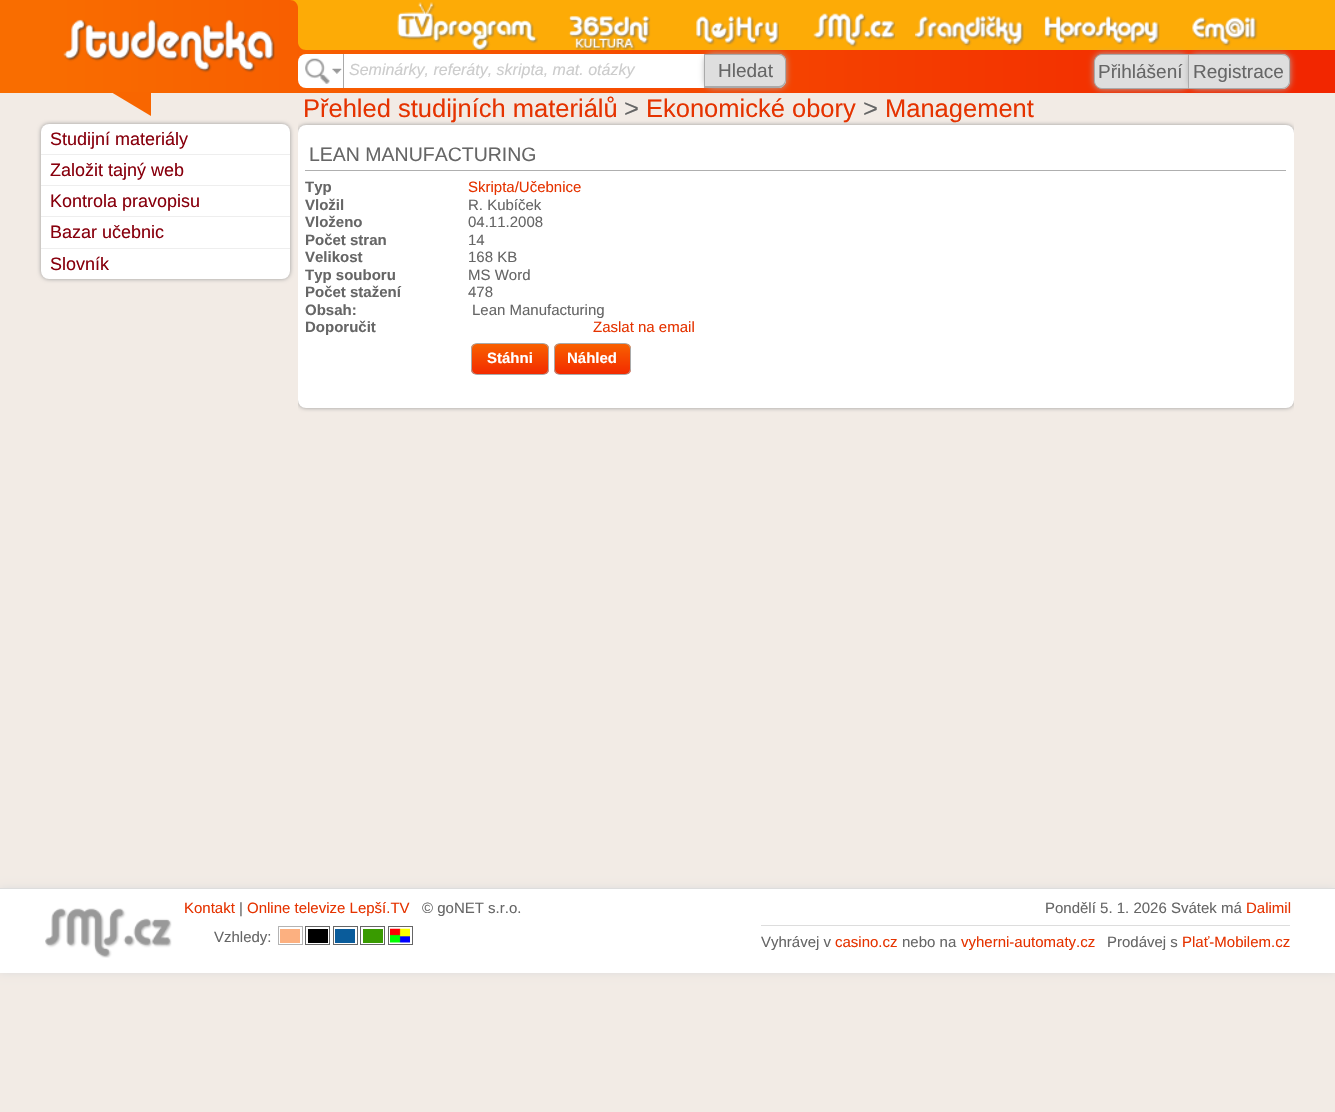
void draw(SkCanvas* c) {
SkPaint p;
p.setAntiAlias(true);
auto F=[&](const char* family, int weight, float size, bool italic = false){SkFontStyle style(weight, SkFontStyle::kNormal_Width,italic ? SkFontStyle::kItalic_Slant : SkFontStyle::kUpright_Slant);SkFont result(fontMgr->matchFamilyStyle(family, style), size);result.setSubpixel(true);return result;};
auto T=[&](const char* s, float x, float y, const SkFont& font){c->drawString(s, x, y, font, p);};
auto R=[&](float x, float y, float w, float h){c->drawRect(SkRect::MakeXYWH(x, y, w, h), p);};
auto Q=[&](float x, float y, float w, float h, float radius){c->drawRoundRect(SkRect::MakeXYWH(x, y, w, h), radius, radius, p);};
auto I=[&](const char* path, float x, float y, float w, float h){auto image = SkImages::DeferredFromEncodedData(SkData::MakeFromFileName(path));c->drawImageRect(image, SkRect::MakeXYWH(x, y, w, h), SkSamplingOptions());};
auto P=[&](const char* data, bool evenOdd = false){SkPath result = *SkParsePath::FromSVGString(data);if (evenOdd) result.setFillType(SkPathFillType::kEvenOdd);return result;};
c->clear(0xfff2ebe5);
p.setColor(0xfff96d00);
R(0,0,41,93);
p.setColor(0xfffdab06);
R(1294,0,41,50);
p.setColor(0xfff22600);
R(1294,50,41,43);
{
const SkColor colors[] = {0xfff96d00,0xfff22600};
const float stops[] = {0,1};
const SkPoint ends[] = {{41,46}, {1294,46}};
p.setShader(SkGradientShader::MakeLinear(ends, colors, stops, 2, SkTileMode::kClamp));
p.setAlpha(255);
}
R(41,0,1253,93);
p.setShader(nullptr);
p.setColor(0xfffdab06);
R(290,0,8,8);
p.setColor(0xfff75f00);
c->drawPath(P("M290 0c4.5 0 8 3.5 8 8h-8z"),p);
I("1.png",63,19,212,54);
p.setColor(0xfffdab06);
c->drawPath(P("M298 0h996v50h-988c-4.5 0-8-3.5-8-8z"),p);
I("2.png",397,2,141,48);
I("3.png",568,15,83,35);
I("4.png",696,16,83,29);
I("5.png",813,13,82,35);
I("6.png",915,15,109,32);
I("7.png",1044,16,116,29);
I("8.png",1192,17,66,30);
p.setColor(0xffffffff);
Q(298,54,488,34,8);
I("9.png",332,68,10,6);
I("10.png",305,58,25,26);
p.setColor(0xffaaaaaa);
p.setMaskFilter(SkMaskFilter::MakeBlur(kNormal_SkBlurStyle, 3));
c->drawRoundRect(SkRect::MakeXYWH(705,54,81,34),8,8,p);
p.setMaskFilter(nullptr);
R(704,54,1,34);
R(343,54,1,34);
auto f1 = F("Liberation Sans",400,16,true);
p.setColor(0xffcccccc);
T("Seminárky, referáty, skripta, mat. otázky",349,75,f1);
p.setColor(0xffdedede);
c->drawPath(P("M705 54h73c4.5 0 8 3.5 8 8v18c0 4.5-3.5 8-8 8h-73z"),p);
p.setColor(0xffaaaaaa);
c->drawPath(P("M705 54h74c4 0 7 3 7 7v19c0 4-3 8-7 8h-74zm0 1h74c3 0 6 3 6 6v19c0 3-3 6-6 6h-74z",true),p);
auto f2 = F("Liberation Sans",400,19);
p.setColor(0xff666666);
T("Hledat",718,77,f2);
p.setColor(0xffaaaaaa);
p.setMaskFilter(SkMaskFilter::MakeBlur(kNormal_SkBlurStyle, 3));
c->drawRoundRect(SkRect::MakeXYWH(1094,54,95,35),8,8,p);
p.setMaskFilter(nullptr);
p.setColor(0xffdedede);
c->drawPath(P("M1102 54.5h86.5v34h-86.5c-4 0-7.5-3.5-7.5-7.5v-19c0-4 3.5-7.5 7.5-7.5z"),p);
p.setStroke(true);
p.setStrokeWidth(1);
p.setColor(0xffaaaaaa);
c->drawPath(P("M1102 54.5h86.5v34h-86.5c-4 0-7.5-3.5-7.5-7.5v-19c0-4 3.5-7.5 7.5-7.5z"),p);
p.setStroke(false);
p.setColor(0xff666666);
T("Přihlášení",1098,78,f2);
p.setColor(0xffaaaaaa);
p.setMaskFilter(SkMaskFilter::MakeBlur(kNormal_SkBlurStyle, 3));
c->drawRoundRect(SkRect::MakeXYWH(1189,54,101,35),8,8,p);
p.setMaskFilter(nullptr);
p.setColor(0xffdedede);
c->drawPath(P("M1189 54h93c4.5 0 8 3.5 8 8v19c0 4.5-3.5 8-8 8h-93z"),p);
p.setColor(0xffaaaaaa);
c->drawPath(P("M1189 54h93c5 0 8 3 8 7v20c0 4-3 8-8 8h-93zm0 1h93c4 0 7 3 7 6v20c0 4-3 7-7 7h-93z",true),p);
p.setColor(0xff666666);
T("Registrace",1193,78,f2);
p.setColor(0xfff86600);
c->drawPath(P("M111 92h40v24z"),p);
p.setColor(0xff999999);
p.setMaskFilter(SkMaskFilter::MakeBlur(kNormal_SkBlurStyle, 2));
c->drawRoundRect(SkRect::MakeXYWH(41,124,249,155),8,8,p);
p.setMaskFilter(nullptr);
p.setColor(0xffffffff);
Q(41,124,249,155,8);
p.setColor(0xffeeeeee);
R(41,154,249,1);
auto f3 = F("Liberation Sans",400,18);
p.setColor(0xff88000d);
T("Studijní materiály",50,145,f3);
p.setColor(0xffeeeeee);
R(41,185,249,1);
p.setColor(0xff88000d);
T("Založit tajný web",50,176,f3);
p.setColor(0xffeeeeee);
R(41,216,249,1);
p.setColor(0xff88000d);
T("Kontrola pravopisu",50,207,f3);
p.setColor(0xffeeeeee);
R(41,248,249,1);
p.setColor(0xff88000d);
T("Bazar učebnic",50,238,f3);
T("Slovník",50,270,f3);
c->save();
c->clipRect(SkRect::MakeXYWH(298,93,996,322));
p.setColor(0xff999999);
p.setMaskFilter(SkMaskFilter::MakeBlur(kNormal_SkBlurStyle, 2));
c->drawRoundRect(SkRect::MakeXYWH(298,125,996,283),8,8,p);
p.setMaskFilter(nullptr);
c->restore();
auto f4 = F("Liberation Sans",400,25.5);
p.setColor(0xffe53300);
T("Přehled studijních materiálů",303,117,f4);
p.setColor(0xff666666);
T(">",624,117,f4);
p.setColor(0xffe53300);
T("Ekonomické obory",646,117,f4);
p.setColor(0xff666666);
T(">",863,117,f4);
p.setColor(0xffe53300);
T("Management",885,117,f4);
p.setColor(0xffffffff);
Q(298,125,996,283,8);
p.setColor(0xffafafaf);
R(305,170,981,1);
auto f5 = F("Liberation Sans",400,19.5);
p.setColor(0xff666666);
T("LEAN MANUFACTURING",309,161,f5);
auto f6 = F("Liberation Sans",700,15);
T("Typ",305,192,f6);
auto f7 = F("Liberation Sans",400,15);
p.setColor(0xffe53300);
T("Skripta/Učebnice",468,192,f7);
p.setColor(0xff666666);
T("Vložil",305,210,f6);
T("R. Kubíček",468,210,f7);
T("Vloženo",305,227,f6);
T("04.11.2008",468,227,f7);
T("Počet stran",305,245,f6);
T("14",468,245,f7);
T("Velikost",305,262,f6);
T("168 KB",468,262,f7);
T("Typ souboru",305,280,f6);
T("MS Word",468,280,f7);
T("Počet stažení",305,297,f6);
T("478",468,297,f7);
T("Obsah:",305,315,f6);
T("Lean Manufacturing",472,315,f7);
T("Doporučit",305,332,f6);
p.setColor(0xffe53300);
T("Zaslat na email",593,332,f7);
c->save();
c->clipPath(P("M477 343h66c3.5 0 6 2.5 6 6v20c0 3.5-2.5 6-6 6h-66c-3.5 0-6-2.5-6-6v-20c0-3.5 2.5-6 6-6z"),true);
{
const SkColor colors[] = {0xfff86000,0xfff32b00};
const float stops[] = {0,1};
const SkPoint ends[] = {{510,344}, {510,374}};
p.setShader(SkGradientShader::MakeLinear(ends, colors, stops, 2, SkTileMode::kClamp));
p.setAlpha(255);
}
R(471,344,78,30);
c->restore();
p.setStroke(true);
p.setShader(nullptr);
p.setColor(0xffaaaaaa);
c->drawRoundRect(SkRect::MakeXYWH(471.5,343.5,77,31),5.5,5.5,p);
p.setStroke(false);
p.setColor(0xffffffff);
T("Stáhni",487,363,f6);
c->save();
c->clipPath(P("M560 343h65c3.5 0 6 2.5 6 6v20c0 3.5-2.5 6-6 6h-65c-3.5 0-6-2.5-6-6v-20c0-3.5 2.5-6 6-6z"),true);
{
const SkColor colors[] = {0xfff86000,0xfff32b00};
const float stops[] = {0,1};
const SkPoint ends[] = {{593,344}, {593,374}};
p.setShader(SkGradientShader::MakeLinear(ends, colors, stops, 2, SkTileMode::kClamp));
p.setAlpha(255);
}
R(554,344,77,30);
c->restore();
p.setStroke(true);
p.setShader(nullptr);
p.setColor(0xffaaaaaa);
c->drawRoundRect(SkRect::MakeXYWH(554.5,343.5,76,31),5.5,5.5,p);
p.setStroke(false);
p.setColor(0xffffffff);
T("Náhled",567,363,f6);
p.setColor(0xffdddddd);
p.setMaskFilter(SkMaskFilter::MakeBlur(kNormal_SkBlurStyle, 4));
c->drawRect(SkRect::MakeXYWH(0,888,1335,85),p);
p.setMaskFilter(nullptr);
p.setColor(0xffffffff);
R(0,889,1335,84);
p.setColor(0xffdddddd);
R(0,888,1335,1);
I("11.png",45,908,127,50);
p.setColor(0xffe53300);
T("Kontakt",184,913,f7);
p.setColor(0xff666666);
T("|",239,913,f7);
p.setColor(0xffe53300);
T("Online televize Lepší.TV",247,913,f7);
p.setColor(0xff666666);
T("© goNET s.r.o.",422,913,f7);
p.setStroke(true);
p.setColor(0xffb3b3b3);
c->drawRect(SkRect::MakeXYWH(278.5,926.5,24,18),p);
p.setStroke(false);
p.setColor(0xfffcb080);
R(280,929,20,14);
p.setStroke(true);
p.setColor(0xff666666);
c->drawRect(SkRect::MakeXYWH(305.5,926.5,24,18),p);
p.setStroke(false);
p.setColor(0xff000000);
R(308,929,20,14);
p.setStroke(true);
p.setColor(0xff666666);
c->drawRect(SkRect::MakeXYWH(333.5,926.5,24,18),p);
p.setStroke(false);
p.setColor(0xff0a5c9b);
R(335,929,20,14);
p.setStroke(true);
p.setColor(0xff666666);
c->drawRect(SkRect::MakeXYWH(360.5,926.5,24,18),p);
p.setStroke(false);
p.setColor(0xff399b00);
R(363,929,20,14);
p.setStroke(true);
p.setColor(0xff666666);
c->drawRect(SkRect::MakeXYWH(388.5,926.5,24,18),p);
p.setStroke(false);
T("Vzhledy:",214,942,f7);
I("12.png",390,928,20,15);
p.setColor(0xffdddddd);
R(761,925,529,1);
p.setColor(0xff666666);
T("Pondělí 5. 1. 2026 Svátek má",1045,913,f7);
p.setColor(0xffe53300);
T("Dalimil",1246,913,f7);
p.setColor(0xff666666);
T("Vyhrávej v",761,947,f7);
p.setColor(0xffe53300);
T("casino.cz",835,947,f7);
p.setColor(0xff666666);
T("nebo na",902,947,f7);
p.setColor(0xffe53300);
T("vyherni-automaty.cz",961,947,f7);
p.setColor(0xff666666);
T("Prodávej s",1107,947,f7);
p.setColor(0xffe53300);
T("Plať-Mobilem.cz",1182,947,f7);
}
